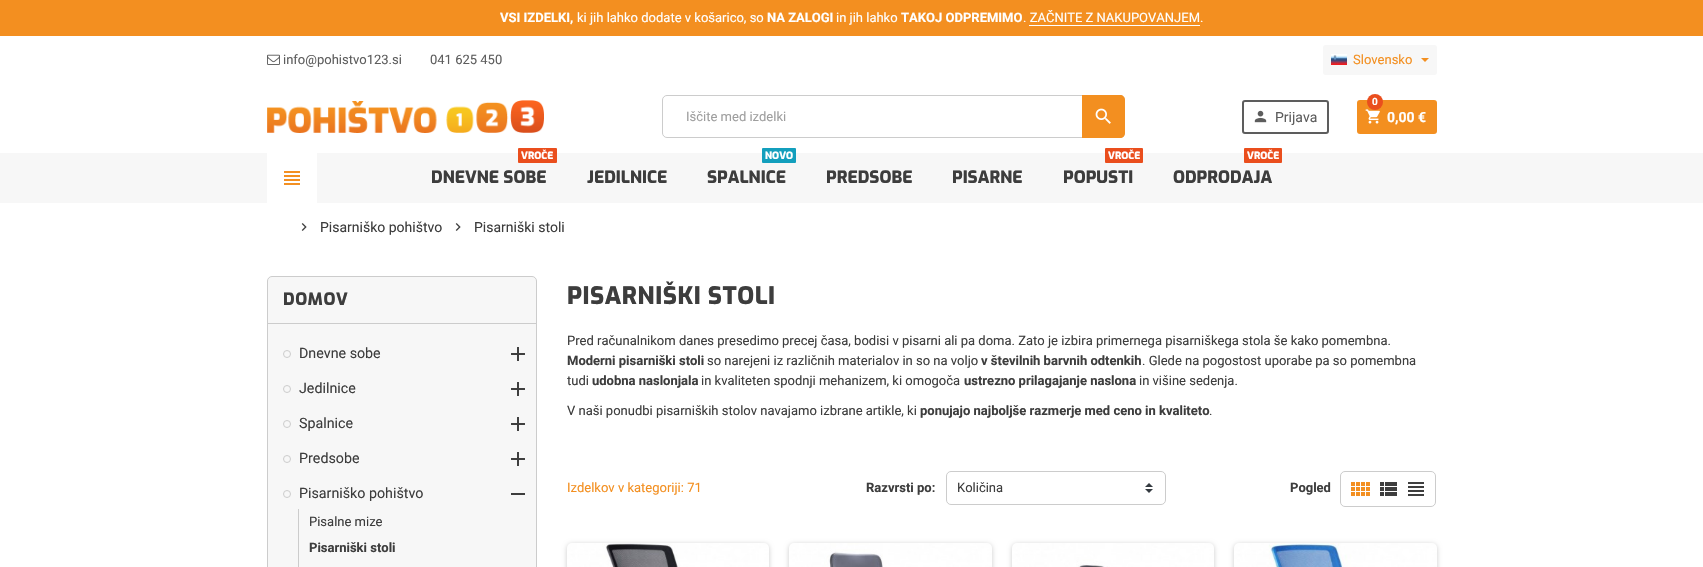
void draw(SkCanvas* c) {
SkPaint p;
p.setAntiAlias(true);
auto F=[&](const char* family, int weight, float size, bool italic = false){SkFontStyle style(weight, SkFontStyle::kNormal_Width,italic ? SkFontStyle::kItalic_Slant : SkFontStyle::kUpright_Slant);SkFont result(fontMgr->matchFamilyStyle(family, style), size);result.setSubpixel(true);return result;};
auto T=[&](const char* s, float x, float y, const SkFont& font){c->drawString(s, x, y, font, p);};
auto L=[&](const char* s, float x, float y, const SkFont& font, const SkPaint& ink, float letter, float word){std::vector<SkGlyphID> glyphs(font.countText(s, strlen(s), SkTextEncoding::kUTF8));std::vector<float> xs(glyphs.size());font.textToGlyphs(s, strlen(s), SkTextEncoding::kUTF8, glyphs);font.getXPos(glyphs, xs, x);float extra = 0;for (size_t i = 0; i < glyphs.size(); i++) {xs[i] += extra;extra += letter + word * (glyphs[i] == font.unicharToGlyph(' '));}c->drawTextBlob(SkTextBlob::MakeFromPosHGlyphs(glyphs, xs, y, font), 0, 0, ink);};
auto R=[&](float x, float y, float w, float h){c->drawRect(SkRect::MakeXYWH(x, y, w, h), p);};
auto Q=[&](float x, float y, float w, float h, float radius){c->drawRoundRect(SkRect::MakeXYWH(x, y, w, h), radius, radius, p);};
auto I=[&](const char* path, float x, float y, float w, float h){auto image = SkImages::DeferredFromEncodedData(SkData::MakeFromFileName(path));c->drawImageRect(image, SkRect::MakeXYWH(x, y, w, h), SkSamplingOptions());};
auto P=[&](const char* data, bool evenOdd = false){SkPath result = *SkParsePath::FromSVGString(data);if (evenOdd) result.setFillType(SkPathFillType::kEvenOdd);return result;};
c->clear(0xffffffff);
p.setColor(0xfff38f20);
R(0,0,1703,36);
auto f1 = F("Roboto",700,13);
p.setColor(0xffffffff);
T("VSI IZDELKI,",500,22,f1);
auto f2 = F("Roboto",400,13);
T("ki jih lahko dodate v košarico, so",577,22,f2);
T("NA ZALOGI",767,22,f1);
T("in jih lahko",836,22,f2);
T("TAKOJ ODPREMIMO",901,22,f1);
T(". ZAČNITE Z NAKUPOVANJEM.",1023,22,f2);
R(1029,25,171,1);
I("1.png",267,54,13,11);
p.setColor(0xff5d5d5d);
T("info@pohistvo123.si",283,64,f2);
T("041 625 450",430,64,f2);
p.setColor(0xfff7f7f7);
Q(1323,45,114,30,3);
I("2.png",1331,54,16,11);
p.setColor(0xfff38f20);
T("Slovensko",1353,64,f2);
c->drawPath(P("M1421 58h8l-4 4z"),p);
I("3.png",267,100,277,33);
p.setStroke(true);
p.setStrokeWidth(1);
p.setColor(0xffcccccc);
c->drawRoundRect(SkRect::MakeXYWH(662.5,95.5,462,42),4.5,4.5,p);
p.setStroke(false);
p.setColor(0xff9e9e9e);
T("Iščite med izdelki",686,121,f2);
p.setColor(0xfff38f20);
c->drawPath(P("M1082 95h38c3 0 5 2 5 5v33c0 3-2 5-5 5h-38z"),p);
I("4.png",1095,108,16,16);
p.setStroke(true);
p.setStrokeWidth(2);
p.setColor(0xff5d5d5d);
c->drawRoundRect(SkRect::MakeXYWH(1243,101,85,32),2,2,p);
I("5.png",1254,110,13,13);
auto f3 = F("Roboto",400,14);
p.setStroke(false);
T("Prijava",1275,122,f3);
p.setColor(0xfff38f20);
Q(1357,100,80,34,3);
I("6.png",1365,109,15,15);
p.setColor(0xffea4e1d);
c->drawCircle(1375,102,8,p);
auto f4 = F("Roboto",700,10);
p.setColor(0xffffffff);
T("0",1372,105,f4);
auto f5 = F("Roboto",700,14);
T("0,00 €",1387,122,f5);
p.setColor(0xfff7f7f7);
R(0,153,1703,50);
p.setColor(0xffffffff);
R(267,153,50,50);
I("7.png",284,171,16,14);
p.setColor(0xffea4e1d);
Q(518,148,39,15,1);
auto f6 = F("Exo",800,10);
p.setColor(0xffffffff);
T("VROČE",521,159,f6);
auto f7 = F("Exo",800,17);
p.setColor(0xff3d3d3d);
T("DNEVNE SOBE",431,183,f7);
T("JEDILNICE",587,183,f7);
p.setColor(0xff139fbd);
Q(762,148,34,15,1);
p.setColor(0xffffffff);
T("NOVO",765,159,f6);
p.setColor(0xff3d3d3d);
T("SPALNICE",707,183,f7);
T("PREDSOBE",826,183,f7);
T("PISARNE",952,183,f7);
p.setColor(0xffea4e1d);
Q(1105,148,38,15,1);
p.setColor(0xffffffff);
T("VROČE",1108,159,f6);
p.setColor(0xff3d3d3d);
T("POPUSTI",1063,183,f7);
p.setColor(0xffea4e1d);
Q(1244,148,38,15,1);
p.setColor(0xffffffff);
T("VROČE",1247,159,f6);
p.setColor(0xff3d3d3d);
T("ODPRODAJA",1173,183,f7);
I("8.png",301,223,6,8);
T("Pisarniško pohištvo",320,232,f3);
I("8.png",455,223,6,8);
T("Pisarniški stoli",474,232,f3);
p.setColor(0xfff7f7f7);
c->drawRoundRect(SkRect::MakeXYWH(267.5,276.5,269,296),4.5,4.5,p);
p.setStroke(true);
p.setStrokeWidth(1);
p.setColor(0xffcccccc);
c->drawRoundRect(SkRect::MakeXYWH(267.5,276.5,269,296),4.5,4.5,p);
p.setStroke(false);
R(268,323,268,1);
p.setColor(0xff3d3d3d);
L("DOMOV",283,305,f7,p,.5,0);
p.setStroke(true);
p.setColor(0xffcccccc);
c->drawCircle(287,354,3.5,p);
auto f8 = F("Roboto",400,14.25);
p.setStroke(false);
p.setColor(0xff3d3d3d);
T("Dnevne sobe",299,358,f8);
I("9.png",511,347,14,14);
p.setStroke(true);
p.setColor(0xffcccccc);
c->drawCircle(287,389,3.5,p);
p.setStroke(false);
p.setColor(0xff3d3d3d);
T("Jedilnice",299,393,f8);
I("9.png",511,382,14,14);
p.setStroke(true);
p.setColor(0xffcccccc);
c->drawCircle(287,424,3.5,p);
p.setStroke(false);
p.setColor(0xff3d3d3d);
T("Spalnice",299,428,f8);
I("9.png",511,417,14,14);
p.setStroke(true);
p.setColor(0xffcccccc);
c->drawCircle(287,459,3.5,p);
p.setStroke(false);
p.setColor(0xff3d3d3d);
T("Predsobe",299,463,f8);
I("9.png",511,452,14,14);
p.setStroke(true);
p.setColor(0xffcccccc);
c->drawCircle(287,494,3.5,p);
p.setStroke(false);
p.setColor(0xff3d3d3d);
T("Pisarniško pohištvo",299,498,f8);
R(511,493,14,2);
p.setColor(0xffcccccc);
R(298,509,1,58);
p.setColor(0xff3d3d3d);
T("Pisalne mize",309,526,f2);
T("Pisarniški stoli",309,552,f1);
auto f9 = F("Exo",800,24);
L("PISARNIŠKI STOLI",567,304,f9,p,.5,0);
T("Pred računalnikom danes presedimo precej časa, bodisi v pisarni ali pa doma. Zato je izbira primernega pisarniškega stola še kako pomembna.",567,345,f2);
T("Moderni pisarniški stoli",567,365,f1);
T("so narejeni iz različnih materialov in so na voljo",707,365,f2);
T("v številnih barvnih odtenkih",981,365,f1);
T(". Glede na pogostost uporabe pa so pomembna",1142,365,f2);
T("tudi",567,385,f2);
T("udobna naslonjala",592,385,f1);
T("in kvaliteten spodnji mehanizem, ki omogoča",701,385,f2);
T("ustrezno prilagajanje naslona",964,385,f1);
T("in višine sedenja.",1139,385,f2);
T("V naši ponudbi pisarniških stolov navajamo izbrane artikle, ki",567,415,f2);
T("ponujajo najboljše razmerje med ceno in kvaliteto",920,415,f1);
T(".",1209,415,f2);
p.setColor(0xfff38f20);
T("Izdelkov v kategoriji: 71",567,492,f2);
p.setColor(0xff3d3d3d);
T("Razvrsti po:",866,492,f1);
I("10.png",1145,483,8,10);
p.setStroke(true);
p.setColor(0xffcccccc);
c->drawRoundRect(SkRect::MakeXYWH(946.5,471.5,219,33),4.5,4.5,p);
p.setStroke(false);
p.setColor(0xff3d3d3d);
T("Količina",957,492,f2);
T("Pogled",1290,492,f1);
p.setStroke(true);
p.setColor(0xffcccccc);
c->drawRoundRect(SkRect::MakeXYWH(1340.5,471.5,95,35),4.5,4.5,p);
I("11.png",1351,482,19,14);
I("12.png",1380,482,17,14);
I("13.png",1408,482,16,14);
p.setStroke(false);
p.setColor(0x33000000);
p.setMaskFilter(SkMaskFilter::MakeBlur(kNormal_SkBlurStyle, 2.5));
c->drawRoundRect(SkRect::MakeXYWH(567,544,202,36),5,5,p);
p.setMaskFilter(nullptr);
I("14.png",567,543,202,24);
p.setMaskFilter(SkMaskFilter::MakeBlur(kNormal_SkBlurStyle, 2.5));
c->drawRoundRect(SkRect::MakeXYWH(789,544,203,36),5,5,p);
p.setMaskFilter(nullptr);
I("15.png",789,543,203,24);
p.setMaskFilter(SkMaskFilter::MakeBlur(kNormal_SkBlurStyle, 2.5));
c->drawRoundRect(SkRect::MakeXYWH(1012,544,202,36),5,5,p);
p.setMaskFilter(nullptr);
I("16.png",1012,543,202,24);
p.setMaskFilter(SkMaskFilter::MakeBlur(kNormal_SkBlurStyle, 2.5));
c->drawRoundRect(SkRect::MakeXYWH(1234,544,203,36),5,5,p);
p.setMaskFilter(nullptr);
I("17.png",1234,543,203,24);
}
